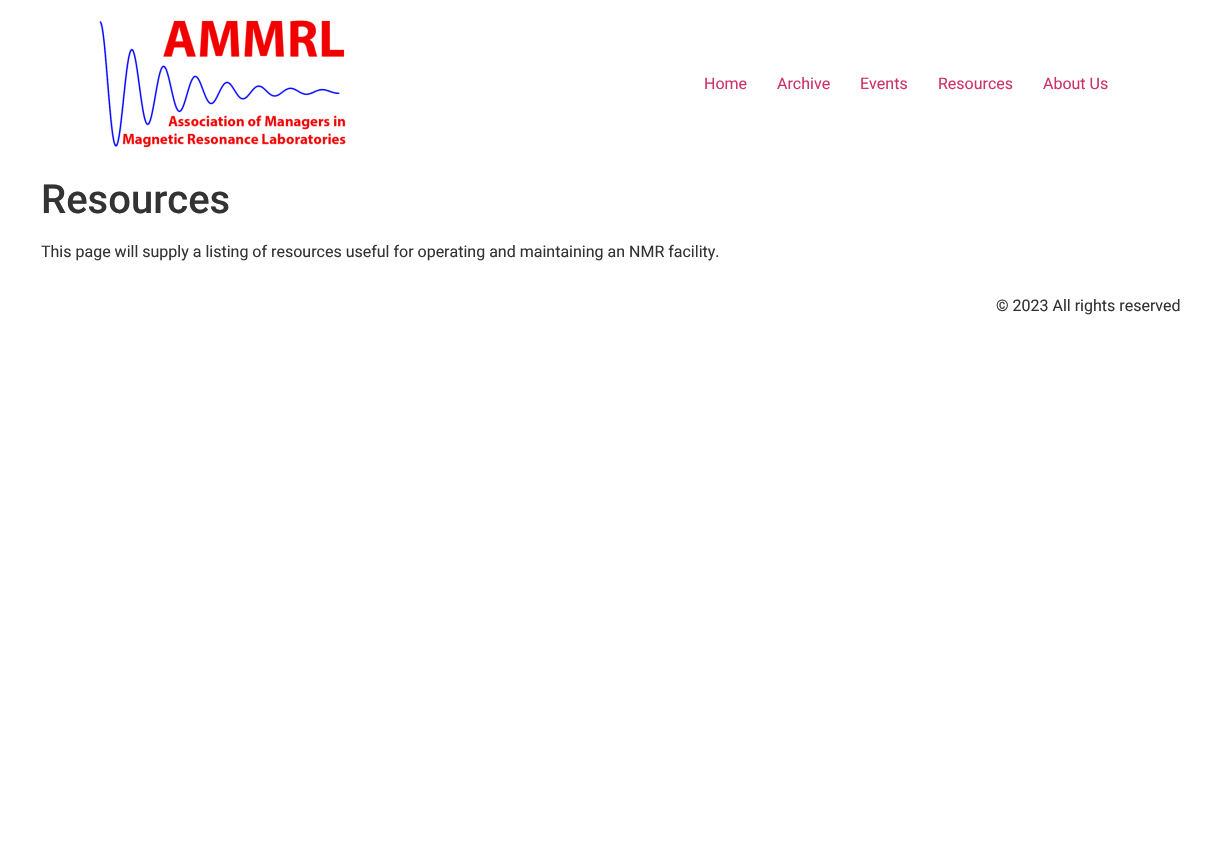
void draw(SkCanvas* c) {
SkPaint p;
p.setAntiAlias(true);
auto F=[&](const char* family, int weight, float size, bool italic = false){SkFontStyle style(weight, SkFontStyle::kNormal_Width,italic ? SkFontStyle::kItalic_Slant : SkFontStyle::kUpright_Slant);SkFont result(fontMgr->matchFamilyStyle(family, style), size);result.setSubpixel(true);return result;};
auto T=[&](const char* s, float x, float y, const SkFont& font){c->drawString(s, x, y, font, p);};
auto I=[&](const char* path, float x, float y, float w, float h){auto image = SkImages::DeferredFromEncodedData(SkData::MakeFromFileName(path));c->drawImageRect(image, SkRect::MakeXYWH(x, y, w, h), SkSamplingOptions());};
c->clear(0xffffffff);
I("1.png",99,20,247,128);
auto f1 = F("Roboto",400,16);
p.setColor(0xffcc3366);
T("Home",704,89,f1);
T("Archive",777,89,f1);
T("Events",860,89,f1);
T("Resources",938,89,f1);
T("About Us",1043,89,f1);
auto f2 = F("Roboto",500,40);
p.setColor(0xff333333);
T("Resources",41,213,f2);
T("This page will supply a listing of resources useful for operating and maintaining an NMR facility.",41,257,f1);
T("© 2023 All rights reserved",996,311,f1);
}
